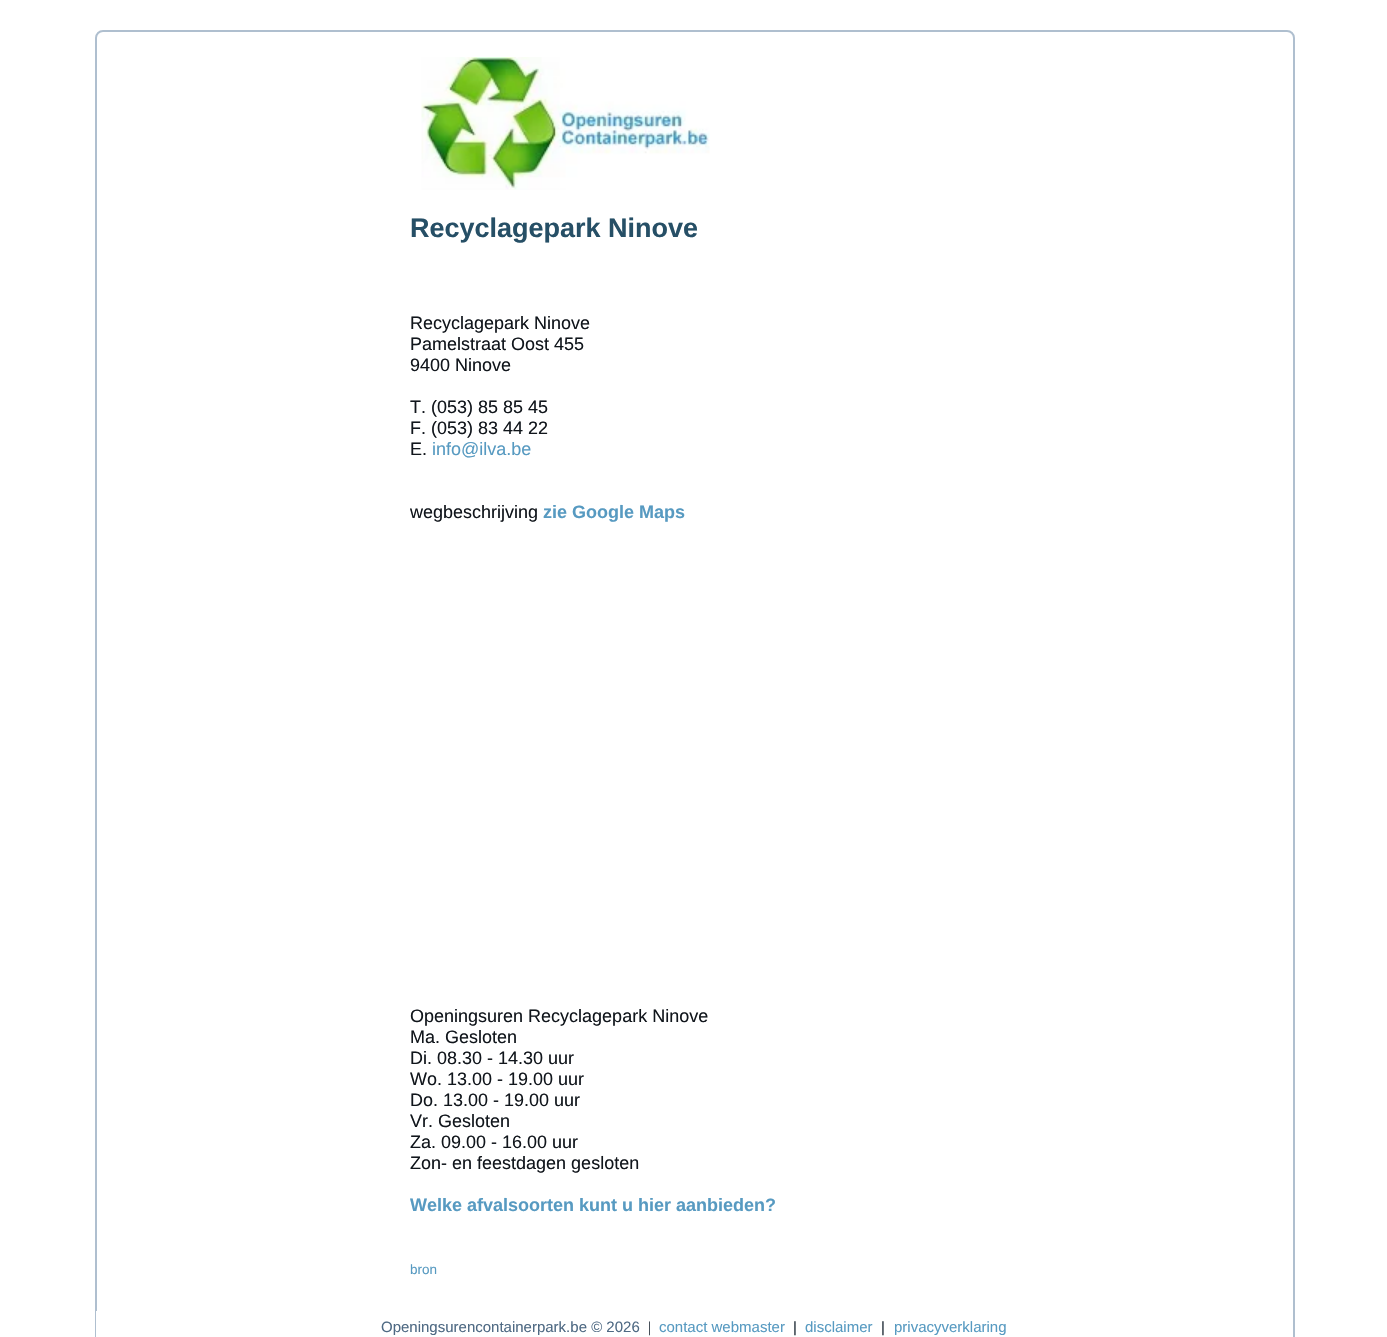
void draw(SkCanvas* c) {
SkPaint p;
p.setAntiAlias(true);
auto F=[&](const char* family, int weight, float size, bool italic = false){SkFontStyle style(weight, SkFontStyle::kNormal_Width,italic ? SkFontStyle::kItalic_Slant : SkFontStyle::kUpright_Slant);SkFont result(fontMgr->matchFamilyStyle(family, style), size);result.setSubpixel(true);return result;};
auto T=[&](const char* s, float x, float y, const SkFont& font){c->drawString(s, x, y, font, p);};
auto R=[&](float x, float y, float w, float h){c->drawRect(SkRect::MakeXYWH(x, y, w, h), p);};
auto I=[&](const char* path, float x, float y, float w, float h){auto image = SkImages::DeferredFromEncodedData(SkData::MakeFromFileName(path));c->drawImageRect(image, SkRect::MakeXYWH(x, y, w, h), SkSamplingOptions());};
c->clear(0xffffffff);
p.setStroke(true);
p.setStrokeWidth(2);
p.setColor(0xffafbfcf);
c->drawRoundRect(SkRect::MakeXYWH(96,31,1198,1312),7,7,p);
I("1.png",421,57,289,133);
auto f1 = F("Liberation Sans",700,27);
p.setStroke(false);
p.setColor(0xff264f66);
T("Recyclagepark Ninove",410,237,f1);
auto f2 = F("Liberation Sans",400,18);
p.setColor(0xff11161c);
T("Recyclagepark Ninove",410,329,f2);
T("Pamelstraat Oost 455",410,350,f2);
T("9400 Ninove",410,371,f2);
T("T. (053) 85 85 45",410,413,f2);
T("F. (053) 83 44 22",410,434,f2);
T("E.",410,455,f2);
p.setColor(0xff579ac1);
T("info@ilva.be",432,455,f2);
p.setColor(0xff11161c);
T("wegbeschrijving",410,518,f2);
auto f3 = F("Liberation Sans",700,18);
p.setColor(0xff579ac1);
T("zie Google Maps",543,518,f3);
p.setColor(0xff11161c);
T("Openingsuren Recyclagepark Ninove",410,1022,f2);
T("Ma. Gesloten",410,1043,f2);
T("Di. 08.30 - 14.30 uur",410,1064,f2);
T("Wo. 13.00 - 19.00 uur",410,1085,f2);
T("Do. 13.00 - 19.00 uur",410,1106,f2);
T("Vr. Gesloten",410,1127,f2);
T("Za. 09.00 - 16.00 uur",410,1148,f2);
T("Zon- en feestdagen gesloten",410,1169,f2);
p.setColor(0xff579ac1);
T("Welke afvalsoorten kunt u hier aanbieden?",410,1211,f3);
auto f4 = F("Liberation Sans",400,13.5);
T("bron",410,1274,f4);
p.setColor(0xffffffff);
R(96,1311,1197,26);
auto f5 = F("Liberation Sans",400,15);
p.setColor(0xff4e6983);
T("Openingsurencontainerpark.be © 2026",381,1332,f5);
auto f6 = F("Liberation Serif",400,15);
p.setColor(0xff222d38);
T("|",648,1332,f6);
p.setColor(0xff579ac1);
T("contact webmaster",659,1332,f5);
p.setColor(0xff222d38);
T("|",793,1332,f5);
p.setColor(0xff579ac1);
T("disclaimer",805,1332,f5);
p.setColor(0xff222d38);
T("|",881,1332,f5);
p.setColor(0xff579ac1);
T("privacyverklaring",894,1332,f5);
}
